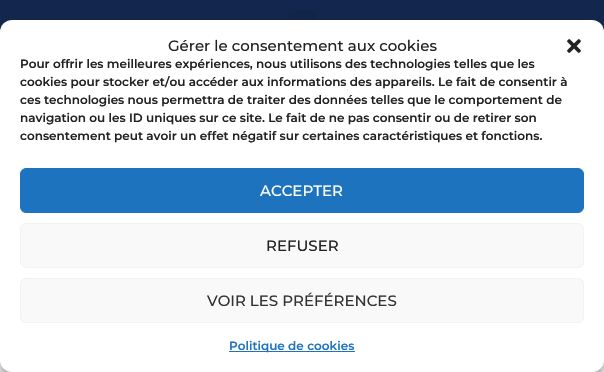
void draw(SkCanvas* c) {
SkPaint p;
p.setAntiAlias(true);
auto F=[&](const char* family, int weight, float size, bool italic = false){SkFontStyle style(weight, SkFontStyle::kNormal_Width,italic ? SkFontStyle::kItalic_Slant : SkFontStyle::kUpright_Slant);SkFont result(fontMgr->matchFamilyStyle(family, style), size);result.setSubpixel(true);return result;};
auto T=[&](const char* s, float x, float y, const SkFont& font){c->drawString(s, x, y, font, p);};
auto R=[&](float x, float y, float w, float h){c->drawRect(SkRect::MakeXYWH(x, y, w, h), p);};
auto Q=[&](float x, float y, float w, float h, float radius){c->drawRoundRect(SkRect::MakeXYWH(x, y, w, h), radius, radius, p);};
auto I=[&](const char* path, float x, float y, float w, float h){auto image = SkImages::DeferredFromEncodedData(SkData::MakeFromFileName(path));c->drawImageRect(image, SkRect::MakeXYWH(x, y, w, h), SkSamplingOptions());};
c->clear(0xffffffff);
p.setColor(0xff13274e);
R(0,0,604,32);
p.setColor(0xff12254a);
Q(288,10,28,33,3);
p.setColor(0x3b000000);
p.setMaskFilter(SkMaskFilter::MakeBlur(kNormal_SkBlurStyle, 3));
c->drawRoundRect(SkRect::MakeXYWH(0,26,604,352),12,12,p);
p.setMaskFilter(nullptr);
p.setColor(0x30000000);
p.setMaskFilter(SkMaskFilter::MakeBlur(kNormal_SkBlurStyle, 10));
c->drawRoundRect(SkRect::MakeXYWH(0,30,604,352),12,12,p);
p.setMaskFilter(nullptr);
p.setColor(0xffffffff);
Q(0,20,604,352,12);
auto f1 = F("Montserrat",500,15);
p.setColor(0xff222222);
T("Gérer le consentement aux cookies",168,51,f1);
I("1.png",567,39,14,14);
auto f2 = F("Montserrat",600,12);
T("Pour offrir les meilleures expériences, nous utilisons des technologies telles que les",20,68,f2);
T("cookies pour stocker et/ou accéder aux informations des appareils. Le fait de consentir à",20,86,f2);
T("ces technologies nous permettra de traiter des données telles que le comportement de",20,104,f2);
T("navigation ou les ID uniques sur ce site. Le fait de ne pas consentir ou de retirer son",20,122,f2);
T("consentement peut avoir un effet négatif sur certaines caractéristiques et fonctions.",20,140,f2);
p.setColor(0xff1e73be);
c->drawRoundRect(SkRect::MakeXYWH(20.5,168.5,563,44),5.5,5.5,p);
p.setStroke(true);
p.setStrokeWidth(1);
c->drawRoundRect(SkRect::MakeXYWH(20.5,168.5,563,44),5.5,5.5,p);
p.setStroke(false);
p.setColor(0xffffffff);
T("ACCEPTER",260,196,f1);
p.setColor(0xfff9f9f9);
c->drawRoundRect(SkRect::MakeXYWH(20.5,223.5,563,44),5.5,5.5,p);
p.setStroke(true);
p.setColor(0xfff2f2f2);
c->drawRoundRect(SkRect::MakeXYWH(20.5,223.5,563,44),5.5,5.5,p);
p.setStroke(false);
p.setColor(0xff222222);
T("REFUSER",266,251,f1);
p.setColor(0xfff9f9f9);
c->drawRoundRect(SkRect::MakeXYWH(20.5,278.5,563,44),5.5,5.5,p);
p.setStroke(true);
p.setColor(0xfff2f2f2);
c->drawRoundRect(SkRect::MakeXYWH(20.5,278.5,563,44),5.5,5.5,p);
p.setStroke(false);
p.setColor(0xff333333);
T("VOIR LES PRÉFÉRENCES",207,306,f1);
p.setColor(0xff1e73be);
R(229,351,126,1);
T("Politique de cookies",229,350,f2);
}
